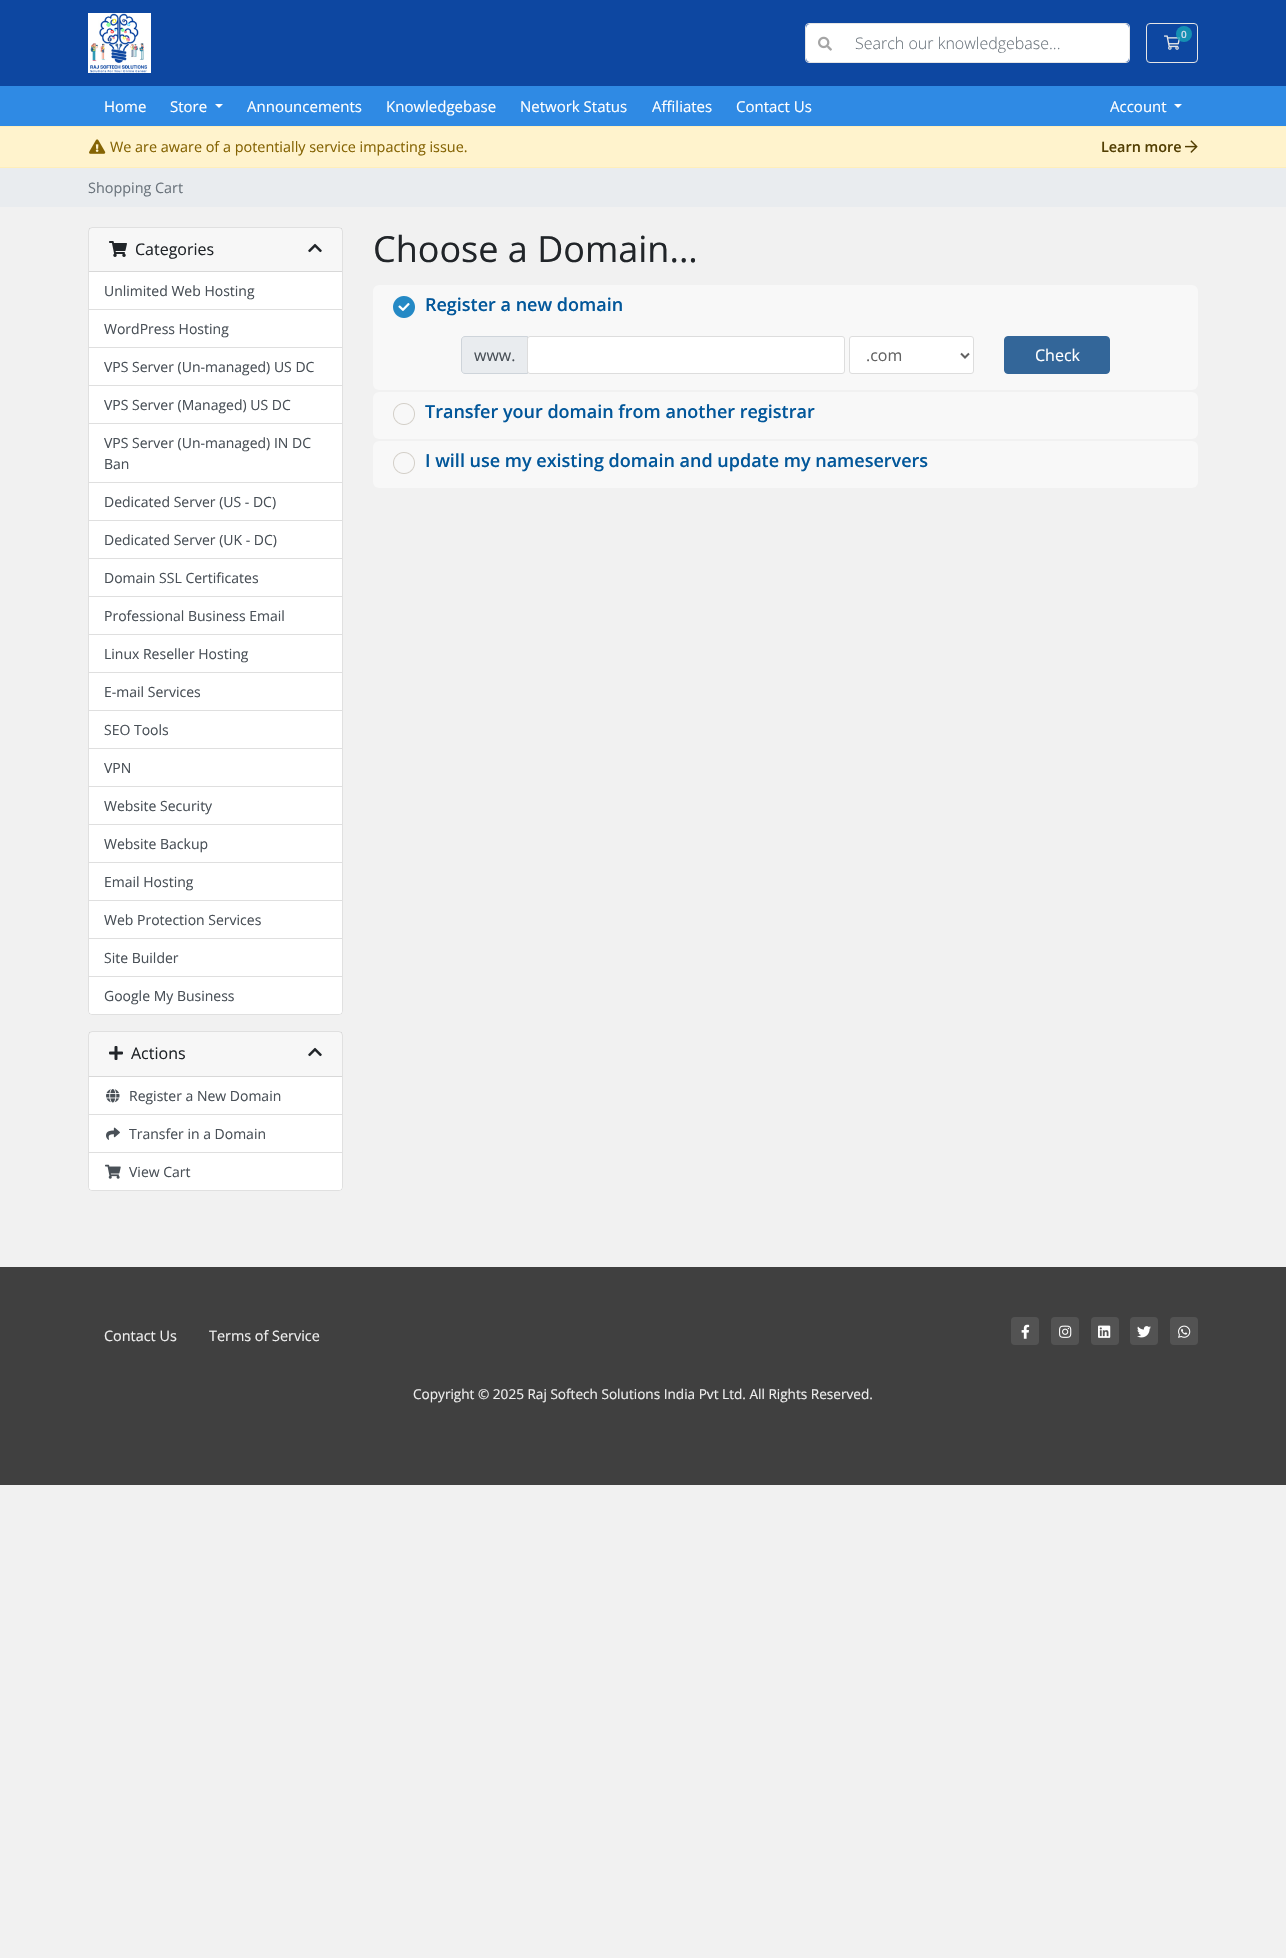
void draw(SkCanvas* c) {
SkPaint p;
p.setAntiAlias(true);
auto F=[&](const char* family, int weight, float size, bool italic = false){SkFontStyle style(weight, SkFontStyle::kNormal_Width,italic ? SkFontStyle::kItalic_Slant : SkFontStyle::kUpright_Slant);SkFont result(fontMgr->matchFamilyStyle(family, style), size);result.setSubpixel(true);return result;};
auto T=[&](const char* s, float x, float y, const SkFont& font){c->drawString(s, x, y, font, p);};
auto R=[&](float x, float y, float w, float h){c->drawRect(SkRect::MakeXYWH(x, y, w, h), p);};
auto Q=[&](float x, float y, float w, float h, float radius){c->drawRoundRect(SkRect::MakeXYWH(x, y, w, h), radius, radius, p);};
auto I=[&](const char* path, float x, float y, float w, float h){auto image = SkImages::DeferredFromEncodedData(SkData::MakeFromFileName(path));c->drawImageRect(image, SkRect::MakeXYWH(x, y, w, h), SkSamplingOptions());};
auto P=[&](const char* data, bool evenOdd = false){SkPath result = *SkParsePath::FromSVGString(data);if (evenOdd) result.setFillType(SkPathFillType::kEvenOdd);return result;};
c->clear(0xfff1f1f1);
p.setColor(0xff0d47a1);
R(0,0,1286,86);
I("1.png",88,13,63,60);
p.setStroke(true);
p.setStrokeWidth(1);
p.setColor(0xffe5e5e5);
c->drawRoundRect(SkRect::MakeXYWH(1146.5,23.5,51,39),3.5,3.5,p);
I("2.png",1164,35,17,15);
p.setStroke(false);
p.setColor(0xcc17a2b8);
c->drawCircle(1184,34,8,p);
auto f1 = F("Open Sans",600,10);
p.setColor(0xffcfdaec);
T("0",1181,38,f1);
p.setStroke(true);
p.setColor(0xffe5e5e5);
c->drawRoundRect(SkRect::MakeXYWH(805.5,23.5,324,39),3.5,3.5,p);
p.setStroke(false);
p.setColor(0xffffffff);
c->drawPath(P("M843 24h282c2 0 4 2 4 4v30c0 2-2 4-4 4h-282z"),p);
c->drawPath(P("M810 24h34v38h-34c-2 0-4-2-4-4v-30c0-2 2-4 4-4z"),p);
I("3.png",818,36,14,15);
auto f2 = F("Open Sans",300,16);
p.setColor(0xff6c757d);
T("Search our knowledgebase...",855,49,f2);
p.setColor(0xff2f8ae4);
R(0,86,1286,40);
auto f3 = F("Open Sans",400,15);
p.setColor(0xffffffff);
T("Home",104,112,f3);
T("Store",170,112,f3);
c->drawPath(P("M215 104h8l-4 4z"),p);
T("Announcements",247,112,f3);
T("Knowledgebase",386,112,f3);
T("Network Status",520,112,f3);
T("Affiliates",652,112,f3);
T("Contact Us",736,112,f3);
T("Account",1110,112,f3);
c->drawPath(P("M1174 104h8l-4 4z"),p);
p.setColor(0xfffff3cd);
R(0,127,1286,40);
p.setColor(0xffffeeba);
R(0,126,1286,1);
R(0,167,1286,1);
I("4.png",89,139,17,15);
auto f4 = F("Open Sans",400,14.4);
p.setColor(0xff856404);
T("We are aware of a potentially service impacting issue.",110,152,f4);
auto f5 = F("Open Sans",600,14.4);
p.setColor(0xff533f03);
T("Learn more",1101,152,f5);
I("5.png",1185,140,13,13);
p.setColor(0xffe9ecef);
R(0,168,1286,39);
p.setColor(0xff6c757d);
T("Shopping Cart",88,193,f4);
p.setColor(0xffffffff);
Q(88,227,255,788,4);
p.setStroke(true);
p.setColor(0x1f000000);
c->drawRoundRect(SkRect::MakeXYWH(88.5,227.5,254,787),3.5,3.5,p);
p.setStroke(false);
p.setColor(0x08000000);
R(89,228,253,43);
p.setColor(0xffd8d8d8);
R(89,271,253,1);
I("6.png",109,241,18,16);
auto f6 = F("Open Sans",400,16);
p.setColor(0xff212529);
T("Categories",135,255,f6);
I("7.png",308,243,14,10);
p.setColor(0xffdfdfdf);
R(89,309,253,1);
auto f7 = F("Open Sans",400,14);
p.setColor(0xff495057);
T("Unlimited Web Hosting",104,296,f7);
p.setColor(0xffdfdfdf);
R(89,347,253,1);
p.setColor(0xff495057);
T("WordPress Hosting",104,334,f7);
p.setColor(0xffdfdfdf);
R(89,385,253,1);
p.setColor(0xff495057);
T("VPS Server (Un-managed) US DC",104,372,f7);
p.setColor(0xffdfdfdf);
R(89,423,253,1);
p.setColor(0xff495057);
T("VPS Server (Managed) US DC",104,410,f7);
p.setColor(0xffdfdfdf);
R(89,482,253,1);
p.setColor(0xff495057);
T("VPS Server (Un-managed) IN DC",104,448,f7);
T("Ban",104,469,f7);
p.setColor(0xffdfdfdf);
R(89,520,253,1);
p.setColor(0xff495057);
T("Dedicated Server (US - DC)",104,507,f7);
p.setColor(0xffdfdfdf);
R(89,558,253,1);
p.setColor(0xff495057);
T("Dedicated Server (UK - DC)",104,545,f7);
p.setColor(0xffdfdfdf);
R(89,596,253,1);
p.setColor(0xff495057);
T("Domain SSL Certificates",104,583,f7);
p.setColor(0xffdfdfdf);
R(89,634,253,1);
p.setColor(0xff495057);
T("Professional Business Email",104,621,f7);
p.setColor(0xffdfdfdf);
R(89,672,253,1);
p.setColor(0xff495057);
T("Linux Reseller Hosting",104,659,f7);
p.setColor(0xffdfdfdf);
R(89,710,253,1);
p.setColor(0xff495057);
T("E-mail Services",104,697,f7);
p.setColor(0xffdfdfdf);
R(89,748,253,1);
p.setColor(0xff495057);
T("SEO Tools",104,735,f7);
p.setColor(0xffdfdfdf);
R(89,786,253,1);
p.setColor(0xff495057);
T("VPN",104,773,f7);
p.setColor(0xffdfdfdf);
R(89,824,253,1);
p.setColor(0xff495057);
T("Website Security",104,811,f7);
p.setColor(0xffdfdfdf);
R(89,862,253,1);
p.setColor(0xff495057);
T("Website Backup",104,849,f7);
p.setColor(0xffdfdfdf);
R(89,900,253,1);
p.setColor(0xff495057);
T("Email Hosting",104,887,f7);
p.setColor(0xffdfdfdf);
R(89,938,253,1);
p.setColor(0xff495057);
T("Web Protection Services",104,925,f7);
p.setColor(0xffdfdfdf);
R(89,976,253,1);
p.setColor(0xff495057);
T("Site Builder",104,963,f7);
p.setColor(0xffffffff);
c->drawPath(P("M89 977h253v34c0 1.5-1.5 3-3 3h-247c-1.5 0-3-1.5-3-3z"),p);
p.setColor(0xff495057);
T("Google My Business",104,1001,f7);
p.setColor(0xffffffff);
Q(88,1031,255,160,4);
p.setStroke(true);
p.setColor(0x1f000000);
c->drawRoundRect(SkRect::MakeXYWH(88.5,1031.5,254,159),3.5,3.5,p);
p.setStroke(false);
p.setColor(0x08000000);
R(89,1032,253,44);
p.setColor(0xffd8d8d8);
R(89,1076,253,1);
I("8.png",109,1046,14,14);
p.setColor(0xff212529);
T("Actions",131,1059,f6);
I("7.png",308,1047,14,10);
p.setColor(0xffdfdfdf);
R(89,1114,253,1);
I("9.png",106,1089,14,14);
p.setColor(0xff495057);
T("Register a New Domain",129,1101,f7);
p.setColor(0xffdfdfdf);
R(89,1152,253,1);
I("10.png",106,1127,14,13);
p.setColor(0xff495057);
T("Transfer in a Domain",129,1139,f7);
p.setColor(0xffffffff);
c->drawPath(P("M89 1153h253v34c0 1.5-1.5 3-3 3h-247c-1.5 0-3-1.5-3-3z"),p);
I("11.png",105,1164,16,15);
p.setColor(0xff495057);
T("View Cart",129,1177,f7);
auto f8 = F("Open Sans",400,36);
p.setColor(0xff212529);
T("Choose a Domain...",373,262,f8);
p.setColor(0xfff8f8f8);
Q(373,285,825,105,6);
I("12.png",393,296,22,22);
auto f9 = F("Open Sans",600,18);
p.setColor(0xff02579a);
T("Register a new domain",425,311,f9);
p.setColor(0xffe9ecef);
c->drawPath(P("M465 336.5h62.5v37h-62.5c-2 0-3.5-1.5-3.5-3.5v-30c0-2 1.5-3.5 3.5-3.5z"),p);
p.setStroke(true);
p.setColor(0xffced4da);
c->drawPath(P("M465 336.5h62.5v37h-62.5c-2 0-3.5-1.5-3.5-3.5v-30c0-2 1.5-3.5 3.5-3.5z"),p);
p.setStroke(false);
p.setColor(0xff495057);
T("www.",474,361,f6);
p.setColor(0xffffffff);
c->drawRoundRect(SkRect::MakeXYWH(527.5,336.5,317,37),2.5,2.5,p);
p.setStroke(true);
p.setColor(0xffdddddd);
c->drawRoundRect(SkRect::MakeXYWH(527.5,336.5,317,37),2.5,2.5,p);
p.setStroke(false);
p.setColor(0xffffffff);
c->drawRoundRect(SkRect::MakeXYWH(849.5,336.5,124,37),2.5,2.5,p);
p.setStroke(true);
p.setColor(0xffdddddd);
c->drawRoundRect(SkRect::MakeXYWH(849.5,336.5,124,37),2.5,2.5,p);
p.setStrokeWidth(2);
p.setColor(0xff626262);
c->drawPath(P("M961 353.5l4 4l4-4"),p);
p.setStroke(false);
T(".com",866,361,f6);
p.setColor(0xff336699);
c->drawRoundRect(SkRect::MakeXYWH(1004.5,336.5,105,37),3.5,3.5,p);
p.setStroke(true);
p.setStrokeWidth(1);
c->drawRoundRect(SkRect::MakeXYWH(1004.5,336.5,105,37),3.5,3.5,p);
p.setStroke(false);
p.setColor(0xffffffff);
T("Check",1035,361,f6);
p.setColor(0xfff8f8f8);
Q(373,392,825,47,6);
I("13.png",393,403,22,22);
p.setColor(0xff02579a);
T("Transfer your domain from another registrar",425,418,f9);
p.setColor(0xfff8f8f8);
Q(373,441,825,47,6);
I("13.png",393,452,22,22);
p.setColor(0xff02579a);
T("I will use my existing domain and update my nameservers",425,467,f9);
p.setColor(0xff404040);
R(0,1267,1286,218);
p.setColor(0xffeeeeee);
T("Contact Us",104,1341,f4);
T("Terms of Service",209,1341,f4);
p.setColor(0xff535353);
Q(1011,1317,28,28,4);
I("14.png",1021,1324,9,15);
Q(1051,1317,28,28,4);
I("15.png",1059,1325,13,13);
Q(1091,1317,28,28,4);
I("16.png",1098,1325,13,13);
Q(1130,1317,28,28,4);
I("17.png",1137,1326,14,12);
Q(1170,1317,28,28,4);
I("18.png",1178,1325,13,13);
auto f10 = F("Open Sans",400,13.6);
p.setColor(0xffeeeeee);
T("Copyright © 2025 Raj Softech Solutions India Pvt Ltd. All Rights Reserved.",413,1399,f10);
}
